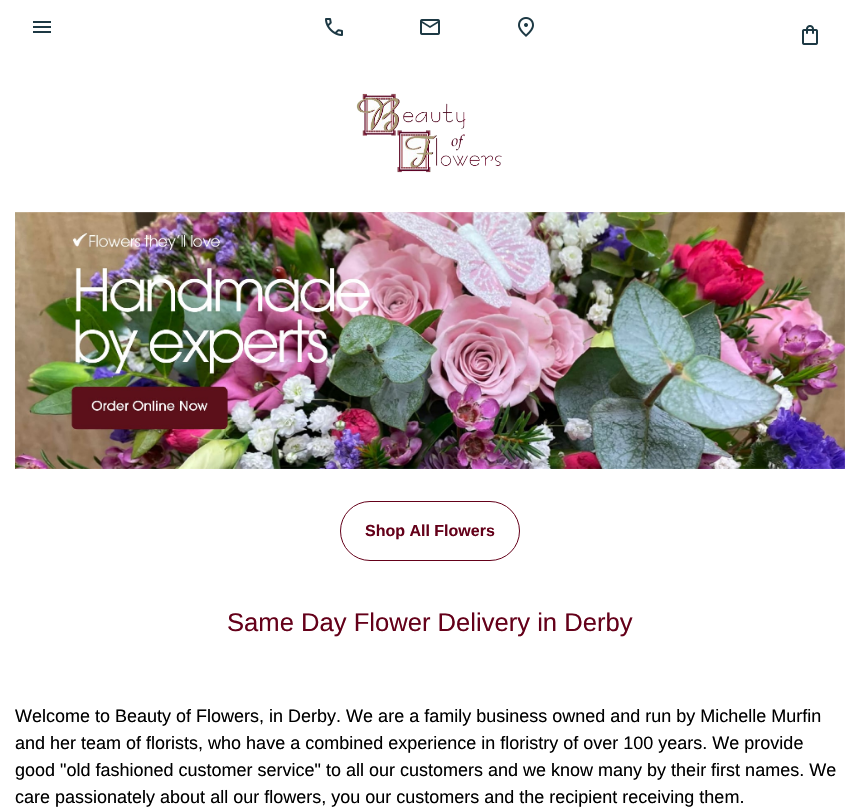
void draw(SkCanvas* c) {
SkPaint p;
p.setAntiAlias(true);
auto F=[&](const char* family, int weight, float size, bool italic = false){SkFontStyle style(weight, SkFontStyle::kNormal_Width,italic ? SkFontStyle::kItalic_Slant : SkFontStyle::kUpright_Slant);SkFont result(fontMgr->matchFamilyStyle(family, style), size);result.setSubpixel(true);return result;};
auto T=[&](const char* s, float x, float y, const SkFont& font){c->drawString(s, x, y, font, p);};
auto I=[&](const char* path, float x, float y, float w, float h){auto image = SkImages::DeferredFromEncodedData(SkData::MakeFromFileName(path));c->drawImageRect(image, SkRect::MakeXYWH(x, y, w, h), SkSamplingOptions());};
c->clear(0xffffffff);
I("1.png",33,21,18,12);
I("2.png",325,18,18,18);
I("3.png",420,19,20,16);
I("4.png",518,17,16,20);
I("5.png",802,25,16,20);
I("6.png",356,93,146,80);
I("7.png",15,212,830,257);
p.setStroke(true);
p.setStrokeWidth(1);
p.setColor(0xff640019);
c->drawRoundRect(SkRect::MakeXYWH(340.5,501.5,179,59),29.5,29.5,p);
auto f1 = F("Liberation Sans",700,16);
p.setStroke(false);
T("Shop All Flowers",365,536,f1);
auto f2 = F("Liberation Sans",400,25.6);
T("Same Day Flower Delivery in Derby",227,631,f2);
auto f3 = F("Liberation Sans",400,18);
p.setColor(0xff000000);
T("Welcome to Beauty of Flowers, in Derby. We are a family business owned and run by Michelle Murfin",15,722,f3);
T("and her team of florists, who have a combined experience in floristry of over 100 years. We provide",15,749,f3);
T("good \"old fashioned customer service\" to all our customers and we know many by their first names. We",15,776,f3);
T("care passionately about all our flowers, you our customers and the recipient receiving them.",15,803,f3);
}
